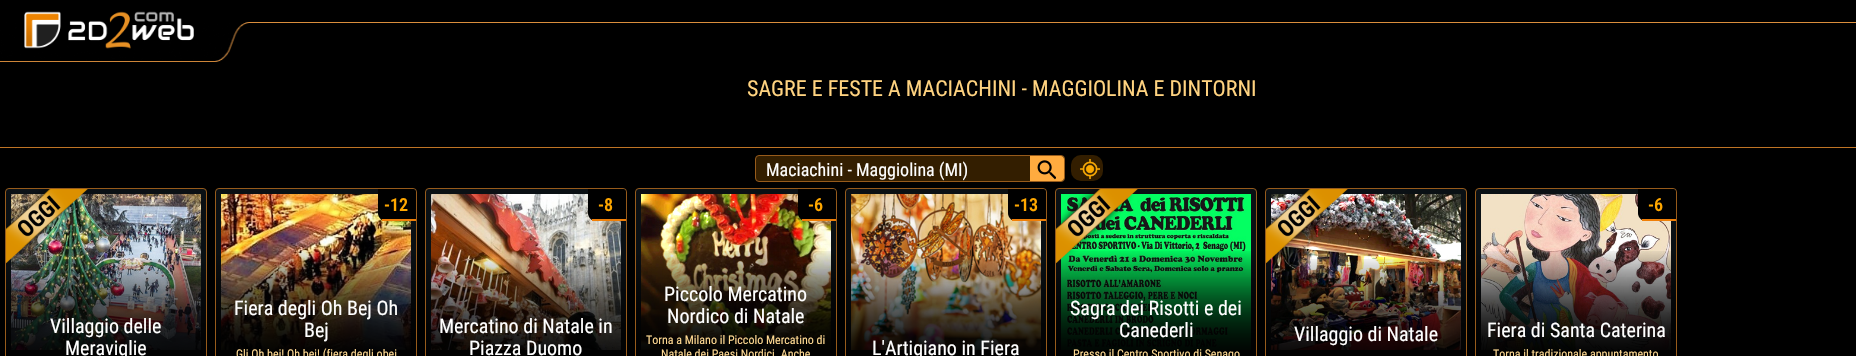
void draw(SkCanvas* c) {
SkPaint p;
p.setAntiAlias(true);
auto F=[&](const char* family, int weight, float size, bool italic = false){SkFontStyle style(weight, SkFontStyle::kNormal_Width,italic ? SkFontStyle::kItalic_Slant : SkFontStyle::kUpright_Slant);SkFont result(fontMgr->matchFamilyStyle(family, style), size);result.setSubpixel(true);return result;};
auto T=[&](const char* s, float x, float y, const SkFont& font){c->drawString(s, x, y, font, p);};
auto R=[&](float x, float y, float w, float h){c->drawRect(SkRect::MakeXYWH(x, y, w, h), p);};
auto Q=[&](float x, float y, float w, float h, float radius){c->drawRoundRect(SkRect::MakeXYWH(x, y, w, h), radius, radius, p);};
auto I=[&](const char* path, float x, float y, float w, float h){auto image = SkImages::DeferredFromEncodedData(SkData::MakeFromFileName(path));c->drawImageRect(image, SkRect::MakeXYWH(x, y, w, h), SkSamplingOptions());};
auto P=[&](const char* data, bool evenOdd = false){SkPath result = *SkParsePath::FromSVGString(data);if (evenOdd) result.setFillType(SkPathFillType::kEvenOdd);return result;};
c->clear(0xff000000);
p.setColor(0xffdb8e3c);
R(249,22,1607,1);
I("2.png",0,22,249,40);
I("1.png",24,11,170,38);
auto f1 = F("Roboto Condensed",400,22);
p.setColor(0xffffd380);
T("SAGRE E FESTE A MACIACHINI - MAGGIOLINA E DINTORNI",747,96,f1);
p.setColor(0xffbf7425);
R(0,147,1856,1);
p.setColor(0xff331e00);
c->drawRoundRect(SkRect::MakeXYWH(755.5,155.5,309,26),3.5,3.5,p);
p.setStroke(true);
p.setStrokeWidth(1);
p.setColor(0xff975b1b);
c->drawRoundRect(SkRect::MakeXYWH(755.5,155.5,309,26),3.5,3.5,p);
auto f2 = F("Roboto Condensed",400,18);
p.setStroke(false);
p.setColor(0xffffffff);
T("Maciachini - Maggiolina (MI)",766,176,f2);
p.setColor(0xffffab3f);
c->drawPath(P("M1030 156h31c1.5 0 3 1.5 3 3v19c0 1.5-1.5 3-3 3h-31z"),p);
I("3.png",1037,160,19,20);
p.setColor(0xff331e00);
Q(1071,155,32,26,10);
I("4.png",1080,159,20,20);
p.setColor(0xff202020);
c->drawRoundRect(SkRect::MakeXYWH(5.5,188.5,201,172),3.5,3.5,p);
p.setStroke(true);
p.setColor(0xff975b1b);
c->drawRoundRect(SkRect::MakeXYWH(5.5,188.5,201,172),3.5,3.5,p);
c->save();
c->clipPath(P("M9 189h194c1.5 0 3 1.5 3 3v264c0 1.5-1.5 3-3 3h-194c-1.5 0-3-1.5-3-3v-264c0-1.5 1.5-3 3-3z"),true);
p.setStroke(false);
p.setColor(0xff0a1014);
Q(6,189,200,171,4);
c->restore();
I("6.png",11,194,190,156);
{
const SkColor colors[] = {0x00000000,0xff000000};
const float stops[] = {.33,1};
const SkPoint ends[] = {{106,189}, {106,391}};
p.setShader(SkGradientShader::MakeLinear(ends, colors, stops, 2, SkTileMode::kClamp));
p.setAlpha(255);
}
R(6,259,200,91);
R(6,259,200,91);
I("5.png",6,189,82,75);
auto f3 = F("Roboto Condensed",400,20);
p.setShader(nullptr);
p.setColor(0xffffffff);
T("Villaggio delle",50,333,f3);
p.setColor(0xff000000);
R(6,350,200,6);
p.setColor(0xffffffff);
T("Meraviglie",65,355,f3);
p.setColor(0xff202020);
c->drawRoundRect(SkRect::MakeXYWH(215.5,188.5,201,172),3.5,3.5,p);
p.setStroke(true);
p.setColor(0xff975b1b);
c->drawRoundRect(SkRect::MakeXYWH(215.5,188.5,201,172),3.5,3.5,p);
c->save();
c->clipPath(P("M219 189h194c1.5 0 3 1.5 3 3v264c0 1.5-1.5 3-3 3h-194c-1.5 0-3-1.5-3-3v-264c0-1.5 1.5-3 3-3z"),true);
p.setStroke(false);
p.setColor(0xff0a1014);
Q(216,189,200,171,4);
c->restore();
I("7.png",221,194,190,156);
p.setColor(0xff000000);
c->drawPath(P("M378 189h35c1.5 0 3 1.5 3 3v29h-30c-4.5 0-8-3.5-8-8z"),p);
p.setColor(0xffef7f08);
R(382,219,34,2);
auto f4 = F("Roboto Condensed",600,18);
p.setColor(0xffffa700);
T("-12",384,211,f4);
{
const SkColor colors[] = {0x00000000,0xff000000};
const float stops[] = {.33,1};
const SkPoint ends[] = {{316,189}, {316,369}};
p.setShader(SkGradientShader::MakeLinear(ends, colors, stops, 2, SkTileMode::kClamp));
p.setAlpha(255);
}
R(216,251,200,99);
R(216,251,200,99);
p.setShader(nullptr);
p.setColor(0xffffffff);
T("Fiera degli Oh Bej Oh",234,315,f3);
T("Bej",304,337,f3);
p.setColor(0xff000000);
R(216,350,200,6);
auto f5 = F("Roboto Condensed",400,12);
p.setColor(0xffffd992);
T("Gli Oh bej! Oh bej! (fiera degli obei",236,358,f5);
p.setColor(0xff202020);
c->drawRoundRect(SkRect::MakeXYWH(425.5,188.5,201,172),3.5,3.5,p);
p.setStroke(true);
p.setColor(0xff975b1b);
c->drawRoundRect(SkRect::MakeXYWH(425.5,188.5,201,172),3.5,3.5,p);
c->save();
c->clipPath(P("M429 189h194c1.5 0 3 1.5 3 3v264c0 1.5-1.5 3-3 3h-194c-1.5 0-3-1.5-3-3v-264c0-1.5 1.5-3 3-3z"),true);
p.setStroke(false);
p.setColor(0xff0a1014);
Q(426,189,200,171,4);
c->restore();
I("8.png",431,194,190,156);
p.setColor(0xff000000);
c->drawPath(P("M588 189h35c1.5 0 3 1.5 3 3v29h-30c-4.5 0-8-3.5-8-8z"),p);
p.setColor(0xffef7f08);
R(592,219,34,2);
p.setColor(0xffffa700);
T("-8",598,211,f4);
{
const SkColor colors[] = {0x00000000,0xff000000};
const float stops[] = {.33,1};
const SkPoint ends[] = {{526,189}, {526,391}};
p.setShader(SkGradientShader::MakeLinear(ends, colors, stops, 2, SkTileMode::kClamp));
p.setAlpha(255);
}
R(426,259,200,91);
R(426,259,200,91);
p.setShader(nullptr);
p.setColor(0xffffffff);
T("Mercatino di Natale in",439,333,f3);
p.setColor(0xff000000);
R(426,350,200,6);
p.setColor(0xffffffff);
T("Piazza Duomo",469,355,f3);
p.setColor(0xff202020);
c->drawRoundRect(SkRect::MakeXYWH(635.5,188.5,201,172),3.5,3.5,p);
p.setStroke(true);
p.setColor(0xff975b1b);
c->drawRoundRect(SkRect::MakeXYWH(635.5,188.5,201,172),3.5,3.5,p);
c->save();
c->clipPath(P("M639 189h194c1.5 0 3 1.5 3 3v264c0 1.5-1.5 3-3 3h-194c-1.5 0-3-1.5-3-3v-264c0-1.5 1.5-3 3-3z"),true);
p.setStroke(false);
p.setColor(0xff0a1014);
Q(636,189,200,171,4);
c->restore();
I("9.png",641,194,190,156);
p.setColor(0xff000000);
c->drawPath(P("M798 189h35c1.5 0 3 1.5 3 3v29h-30c-4.5 0-8-3.5-8-8z"),p);
p.setColor(0xffef7f08);
R(802,219,34,2);
p.setColor(0xffffa700);
T("-6",808,211,f4);
{
const SkColor colors[] = {0x00000000,0xff000000};
const float stops[] = {.33,1};
const SkPoint ends[] = {{736,189}, {736,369}};
p.setShader(SkGradientShader::MakeLinear(ends, colors, stops, 2, SkTileMode::kClamp));
p.setAlpha(255);
}
R(636,251,200,99);
R(636,251,200,99);
p.setShader(nullptr);
p.setColor(0xffffffff);
T("Piccolo Mercatino",664,301,f3);
T("Nordico di Natale",667,323,f3);
p.setColor(0xffffd992);
T("Torna a Milano il Piccolo Mercatino di",646,344,f5);
p.setColor(0xff000000);
R(636,350,200,6);
p.setColor(0xffffd992);
T("Natale dei Paesi Nordici. Anche",661,358,f5);
p.setColor(0xff202020);
c->drawRoundRect(SkRect::MakeXYWH(845.5,188.5,201,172),3.5,3.5,p);
p.setStroke(true);
p.setColor(0xff975b1b);
c->drawRoundRect(SkRect::MakeXYWH(845.5,188.5,201,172),3.5,3.5,p);
c->save();
c->clipPath(P("M849 189h194c1.5 0 3 1.5 3 3v264c0 1.5-1.5 3-3 3h-194c-1.5 0-3-1.5-3-3v-264c0-1.5 1.5-3 3-3z"),true);
p.setStroke(false);
p.setColor(0xff0a1014);
Q(846,189,200,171,4);
c->restore();
I("10.png",851,194,190,156);
p.setColor(0xff000000);
c->drawPath(P("M1008 189h35c1.5 0 3 1.5 3 3v29h-30c-4.5 0-8-3.5-8-8z"),p);
p.setColor(0xffef7f08);
R(1012,219,34,2);
p.setColor(0xffffa700);
T("-13",1014,211,f4);
{
const SkColor colors[] = {0x00000000,0xff000000};
const float stops[] = {.33,1};
const SkPoint ends[] = {{946,189}, {946,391}};
p.setShader(SkGradientShader::MakeLinear(ends, colors, stops, 2, SkTileMode::kClamp));
p.setAlpha(255);
}
R(846,259,200,91);
R(846,259,200,91);
p.setShader(nullptr);
p.setColor(0xff000000);
R(846,350,200,6);
p.setColor(0xffffffff);
T("L'Artigiano in Fiera",872,355,f3);
p.setColor(0xff202020);
c->drawRoundRect(SkRect::MakeXYWH(1055.5,188.5,201,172),3.5,3.5,p);
p.setStroke(true);
p.setColor(0xff975b1b);
c->drawRoundRect(SkRect::MakeXYWH(1055.5,188.5,201,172),3.5,3.5,p);
c->save();
c->clipPath(P("M1059 189h194c1.5 0 3 1.5 3 3v264c0 1.5-1.5 3-3 3h-194c-1.5 0-3-1.5-3-3v-264c0-1.5 1.5-3 3-3z"),true);
p.setStroke(false);
p.setColor(0xff0a1014);
Q(1056,189,200,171,4);
c->restore();
I("12.png",1061,194,190,156);
{
const SkColor colors[] = {0x00000000,0xff000000};
const float stops[] = {.33,1};
const SkPoint ends[] = {{1156,189}, {1156,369}};
p.setShader(SkGradientShader::MakeLinear(ends, colors, stops, 2, SkTileMode::kClamp));
p.setAlpha(255);
}
R(1056,251,200,99);
R(1056,251,200,99);
I("11.png",1056,189,82,75);
p.setShader(nullptr);
p.setColor(0xffffffff);
T("Sagra dei Risotti e dei",1070,315,f3);
T("Canederli",1119,337,f3);
p.setColor(0xff000000);
R(1056,350,200,6);
p.setColor(0xffffd992);
T("Presso il Centro Sportivo di Senago",1073,358,f5);
p.setColor(0xff202020);
c->drawRoundRect(SkRect::MakeXYWH(1265.5,188.5,201,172),3.5,3.5,p);
p.setStroke(true);
p.setColor(0xff975b1b);
c->drawRoundRect(SkRect::MakeXYWH(1265.5,188.5,201,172),3.5,3.5,p);
c->save();
c->clipPath(P("M1269 189h194c1.5 0 3 1.5 3 3v264c0 1.5-1.5 3-3 3h-194c-1.5 0-3-1.5-3-3v-264c0-1.5 1.5-3 3-3z"),true);
p.setStroke(false);
p.setColor(0xff0a1014);
Q(1266,189,200,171,4);
c->restore();
I("14.png",1271,194,190,156);
{
const SkColor colors[] = {0x00000000,0xff000000};
const float stops[] = {.33,1};
const SkPoint ends[] = {{1366,189}, {1366,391}};
p.setShader(SkGradientShader::MakeLinear(ends, colors, stops, 2, SkTileMode::kClamp));
p.setAlpha(255);
}
R(1266,259,200,91);
R(1266,259,200,91);
I("13.png",1266,189,82,75);
p.setShader(nullptr);
p.setColor(0xffffffff);
T("Villaggio di Natale",1294,341,f3);
p.setColor(0xff000000);
R(1266,350,200,6);
p.setColor(0xff202020);
c->drawRoundRect(SkRect::MakeXYWH(1475.5,188.5,201,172),3.5,3.5,p);
p.setStroke(true);
p.setColor(0xff975b1b);
c->drawRoundRect(SkRect::MakeXYWH(1475.5,188.5,201,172),3.5,3.5,p);
c->save();
c->clipPath(P("M1479 189h194c1.5 0 3 1.5 3 3v264c0 1.5-1.5 3-3 3h-194c-1.5 0-3-1.5-3-3v-264c0-1.5 1.5-3 3-3z"),true);
p.setStroke(false);
p.setColor(0xff0a1014);
Q(1476,189,200,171,4);
c->restore();
I("15.png",1481,194,190,156);
p.setColor(0xff000000);
c->drawPath(P("M1638 189h35c1.5 0 3 1.5 3 3v29h-30c-4.5 0-8-3.5-8-8z"),p);
p.setColor(0xffef7f08);
R(1642,219,34,2);
p.setColor(0xffffa700);
T("-6",1648,211,f4);
{
const SkColor colors[] = {0x00000000,0xff000000};
const float stops[] = {.33,1};
const SkPoint ends[] = {{1576,189}, {1576,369}};
p.setShader(SkGradientShader::MakeLinear(ends, colors, stops, 2, SkTileMode::kClamp));
p.setAlpha(255);
}
R(1476,251,200,99);
R(1476,251,200,99);
p.setShader(nullptr);
p.setColor(0xffffffff);
T("Fiera di Santa Caterina",1487,337,f3);
p.setColor(0xff000000);
R(1476,350,200,6);
p.setColor(0xffffd992);
T("Torna il tradizionale appuntamento",1493,358,f5);
}
